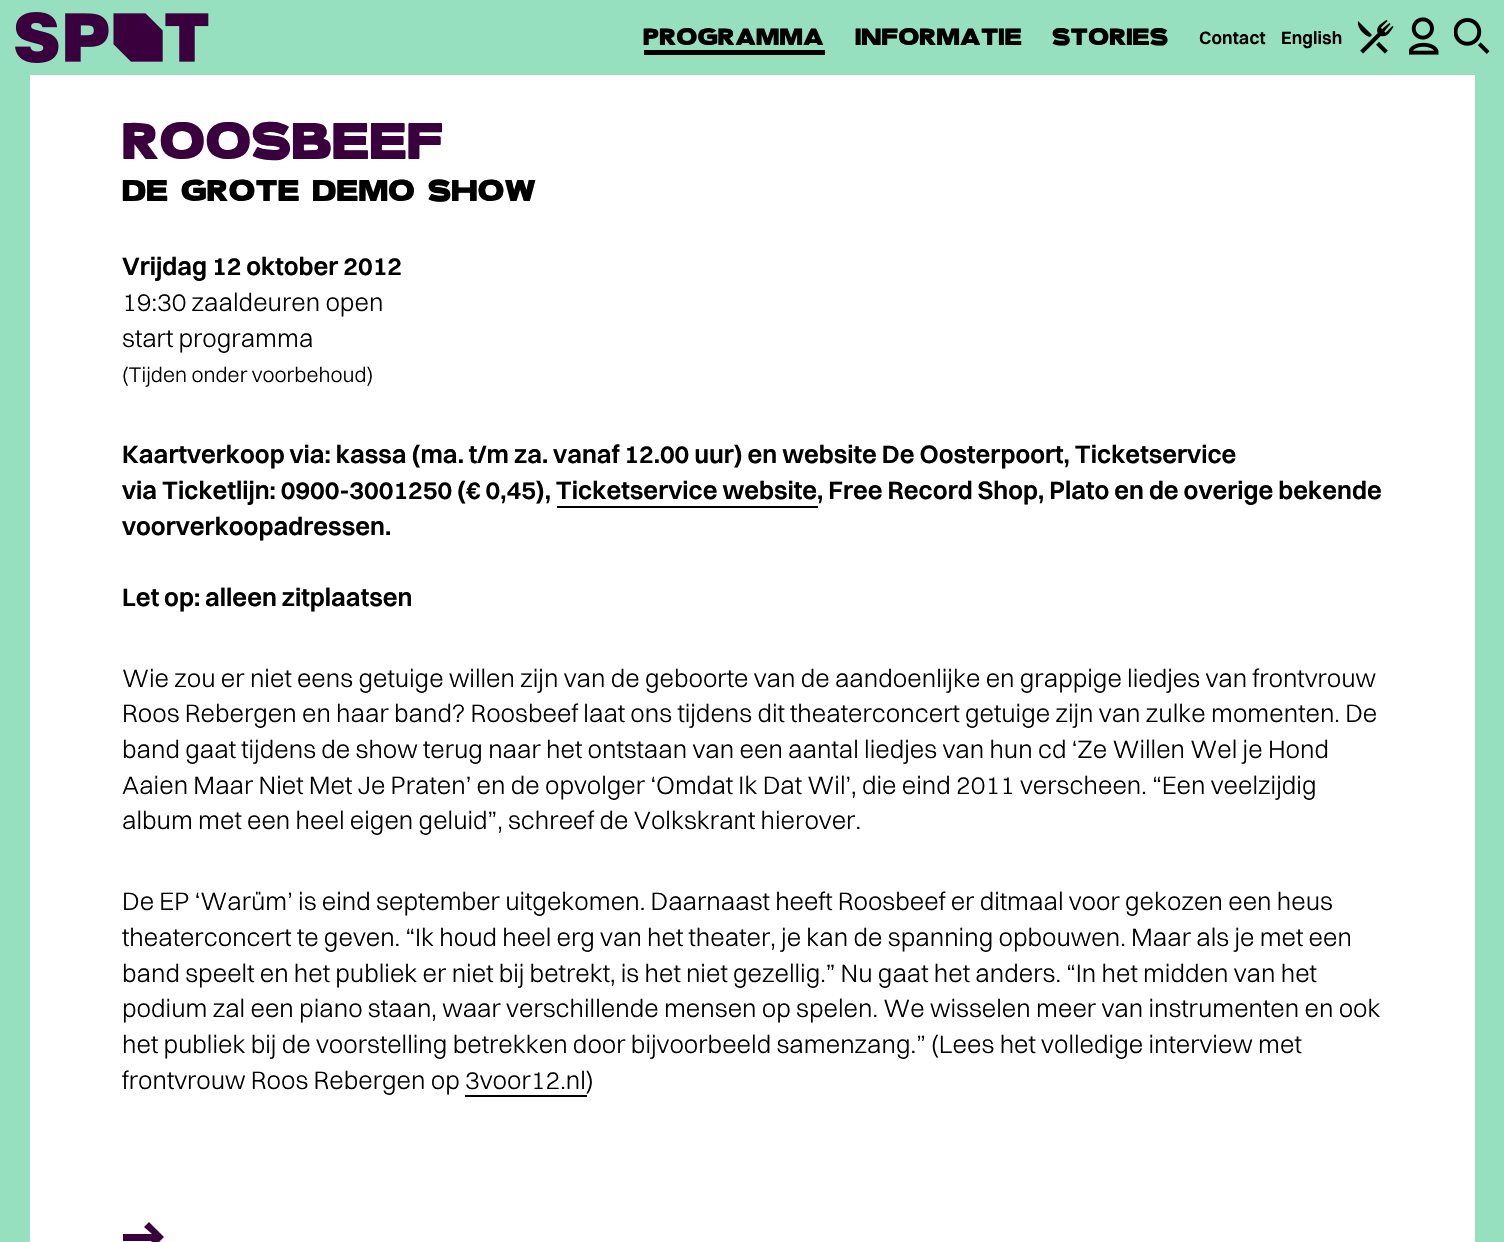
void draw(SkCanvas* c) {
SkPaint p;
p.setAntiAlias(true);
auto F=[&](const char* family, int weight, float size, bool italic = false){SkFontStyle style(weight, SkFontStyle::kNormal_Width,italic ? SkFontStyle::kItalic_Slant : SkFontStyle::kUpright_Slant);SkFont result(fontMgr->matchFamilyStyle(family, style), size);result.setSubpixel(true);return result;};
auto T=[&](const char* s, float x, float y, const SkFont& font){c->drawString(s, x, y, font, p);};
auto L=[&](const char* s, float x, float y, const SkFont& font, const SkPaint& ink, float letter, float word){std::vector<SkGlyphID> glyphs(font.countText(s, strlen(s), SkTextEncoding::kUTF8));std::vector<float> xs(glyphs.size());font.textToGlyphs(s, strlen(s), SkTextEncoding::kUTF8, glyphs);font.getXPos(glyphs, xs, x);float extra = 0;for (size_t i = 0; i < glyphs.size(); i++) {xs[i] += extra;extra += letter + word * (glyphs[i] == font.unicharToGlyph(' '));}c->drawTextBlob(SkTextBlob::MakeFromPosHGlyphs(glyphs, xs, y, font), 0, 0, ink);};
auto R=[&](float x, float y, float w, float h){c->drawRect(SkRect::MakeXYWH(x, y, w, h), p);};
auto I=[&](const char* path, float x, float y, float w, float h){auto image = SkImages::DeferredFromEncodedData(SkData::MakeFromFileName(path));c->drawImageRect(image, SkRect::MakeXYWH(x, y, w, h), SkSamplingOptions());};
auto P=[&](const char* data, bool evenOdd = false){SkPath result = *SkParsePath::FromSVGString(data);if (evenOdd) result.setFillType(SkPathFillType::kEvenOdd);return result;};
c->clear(0xff97e0bf);
I("1.png",15,12,194,51);
auto f1 = F("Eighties",400,33);
p.setColor(0xff000000);
L("PROGRAMMA",643,45,f1,p,.1,0);
R(644,50,181,5);
L("INFORMATIE",855,45,f1,p,.1,0);
L("STORIES",1052,45,f1,p,.1,0);
auto f2 = F("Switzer",600,18);
L("Contact",1199,44,f2,p,.1,0);
L("English",1281,44,f2,p,.1,0);
I("2.png",1358,20,36,34);
I("3.png",1409,17,30,38);
I("4.png",1454,18,36,36);
p.setColor(0xffffffff);
R(30,75,1445,1167);
auto f3 = F("Eighties",400,72);
p.setColor(0xff3a003e);
L("ROOSBEEF",122,159,f3,p,.1,0);
auto f4 = F("Eighties",400,42);
p.setColor(0xff000000);
L("DE GROTE DEMO SHOW",122,201,f4,p,.1,0);
auto f5 = F("Switzer",600,25.5);
T("Vrijdag 12 oktober 2012",122,275,f5);
auto f6 = F("Switzer",300,25.5);
T("19:30 zaaldeuren open",122,311,f6);
T("start programma",122,347,f6);
auto f7 = F("Switzer",300,21.25);
T("(Tijden onder voorbehoud)",122,382,f7);
T("Kaartverkoop via: kassa (ma. t/m za. vanaf 12.00 uur) en website De Oosterpoort, Ticketservice",122,463,f5);
T("via Ticketlijn: 0900-3001250 (€ 0,45), Ticketservice website, Free Record Shop, Plato en de overige bekende",122,499,f5);
R(557,506,261,2);
T("voorverkoopadressen.",122,535,f5);
T("Let op: alleen zitplaatsen",122,606,f5);
T("Wie zou er niet eens getuige willen zijn van de geboorte van de aandoenlijke en grappige liedjes van frontvrouw",122,687,f6);
T("Roos Rebergen en haar band? Roosbeef laat ons tijdens dit theaterconcert getuige zijn van zulke momenten. De",122,722,f6);
T("band gaat tijdens de show terug naar het ontstaan van een aantal liedjes van hun cd ‘Ze Willen Wel je Hond",122,758,f6);
T("Aaien Maar Niet Met Je Praten’ en de opvolger ‘Omdat Ik Dat Wil’, die eind 2011 verscheen. “Een veelzijdig",122,794,f6);
T("album met een heel eigen geluid”, schreef de Volkskrant hierover.",122,829,f6);
T("De EP ‘Warüm’ is eind september uitgekomen. Daarnaast heeft Roosbeef er ditmaal voor gekozen een heus",122,910,f6);
T("theaterconcert te geven. “Ik houd heel erg van het theater, je kan de spanning opbouwen. Maar als je met een",122,946,f6);
T("band speelt en het publiek er niet bij betrekt, is het niet gezellig.” Nu gaat het anders. “In het midden van het",122,982,f6);
T("podium zal een piano staan, waar verschillende mensen op spelen. We wisselen meer van instrumenten en ook",122,1017,f6);
T("het publiek bij de voorstelling betrekken door bijvoorbeeld samenzang.” (Lees het volledige interview met",122,1053,f6);
T("frontvrouw Roos Rebergen op 3voor12.nl)",122,1089,f6);
R(465,1095,122,2);
p.setColor(0xff3a003e);
c->drawPath(P("M152 1241h-29v-7h29l-8-7l5-5l15 15l-15 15l-5-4z",true),p);
}
